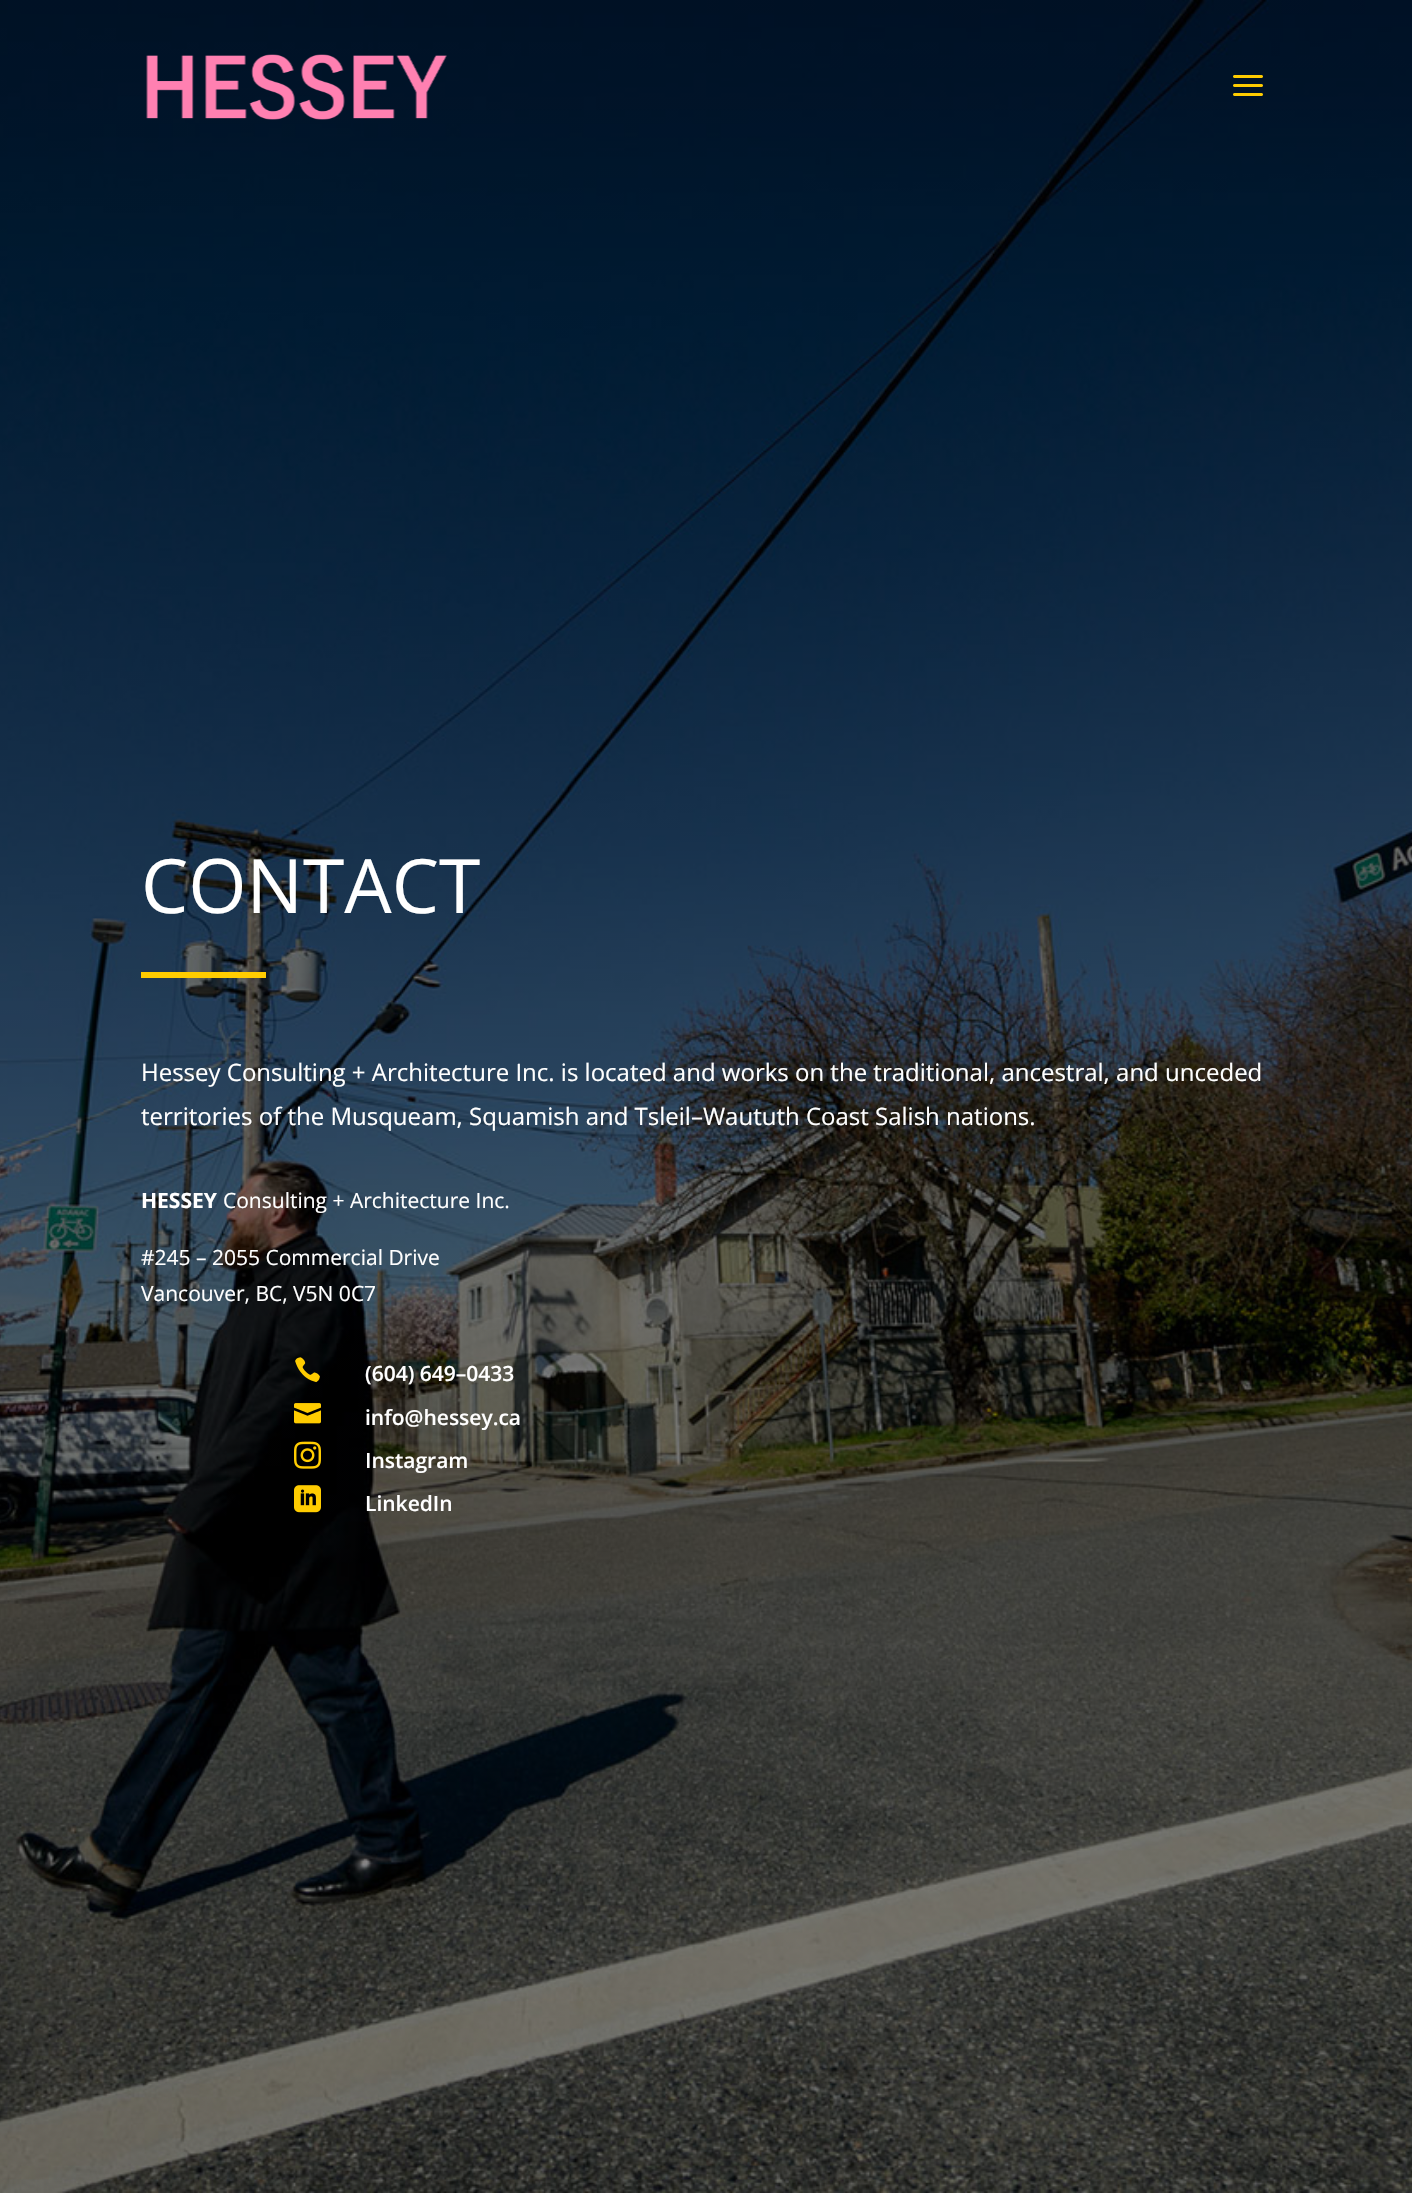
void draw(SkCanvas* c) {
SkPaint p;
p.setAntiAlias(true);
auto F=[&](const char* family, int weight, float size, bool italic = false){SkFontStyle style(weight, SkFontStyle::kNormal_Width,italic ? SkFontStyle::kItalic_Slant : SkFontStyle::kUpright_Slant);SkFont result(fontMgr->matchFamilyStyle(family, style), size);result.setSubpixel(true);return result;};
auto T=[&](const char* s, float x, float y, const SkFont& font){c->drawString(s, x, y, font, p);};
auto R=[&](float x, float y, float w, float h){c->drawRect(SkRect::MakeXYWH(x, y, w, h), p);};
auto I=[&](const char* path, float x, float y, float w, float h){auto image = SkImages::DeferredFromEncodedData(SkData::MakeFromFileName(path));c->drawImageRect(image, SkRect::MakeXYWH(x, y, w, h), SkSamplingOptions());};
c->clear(0xffffffff);
I("3.png",0,0,1412,2193);
I("1.png",146,54,301,66);
I("2.png",1233,75,30,21);
auto f1 = F("Open Sans",400,75);
p.setColor(0xffffffff);
T("CONTACT",141,913,f1);
p.setColor(0xffffcc00);
R(141,972,125,6);
auto f2 = F("Open Sans",400,24);
p.setColor(0xffffffff);
T("Hessey Consulting + Architecture Inc. is located and works  on the traditional, ancestral, and unceded",141,1081,f2);
T("territories of the  Musqueam, Squamish and  Tsleil–Waututh  Coast Salish nations.",141,1125,f2);
auto f3 = F("Open Sans",700,21);
T("HESSEY",141,1208,f3);
auto f4 = F("Open Sans",400,21);
T("Consulting + Architecture Inc.",223,1208,f4);
T("#245 – 2055 Commercial Drive",141,1265,f4);
T("Vancouver, BC, V5N 0C7",141,1301,f4);
I("4.png",295,1357,25,26);
auto f5 = F("Open Sans",600,21);
T("(604) 649–0433",365,1381,f5);
I("5.png",294,1403,27,21);
T("info@hessey.ca",365,1425,f5);
I("6.png",294,1441,27,28);
T("Instagram",365,1468,f5);
I("7.png",294,1485,27,28);
T("LinkedIn",365,1511,f5);
}
